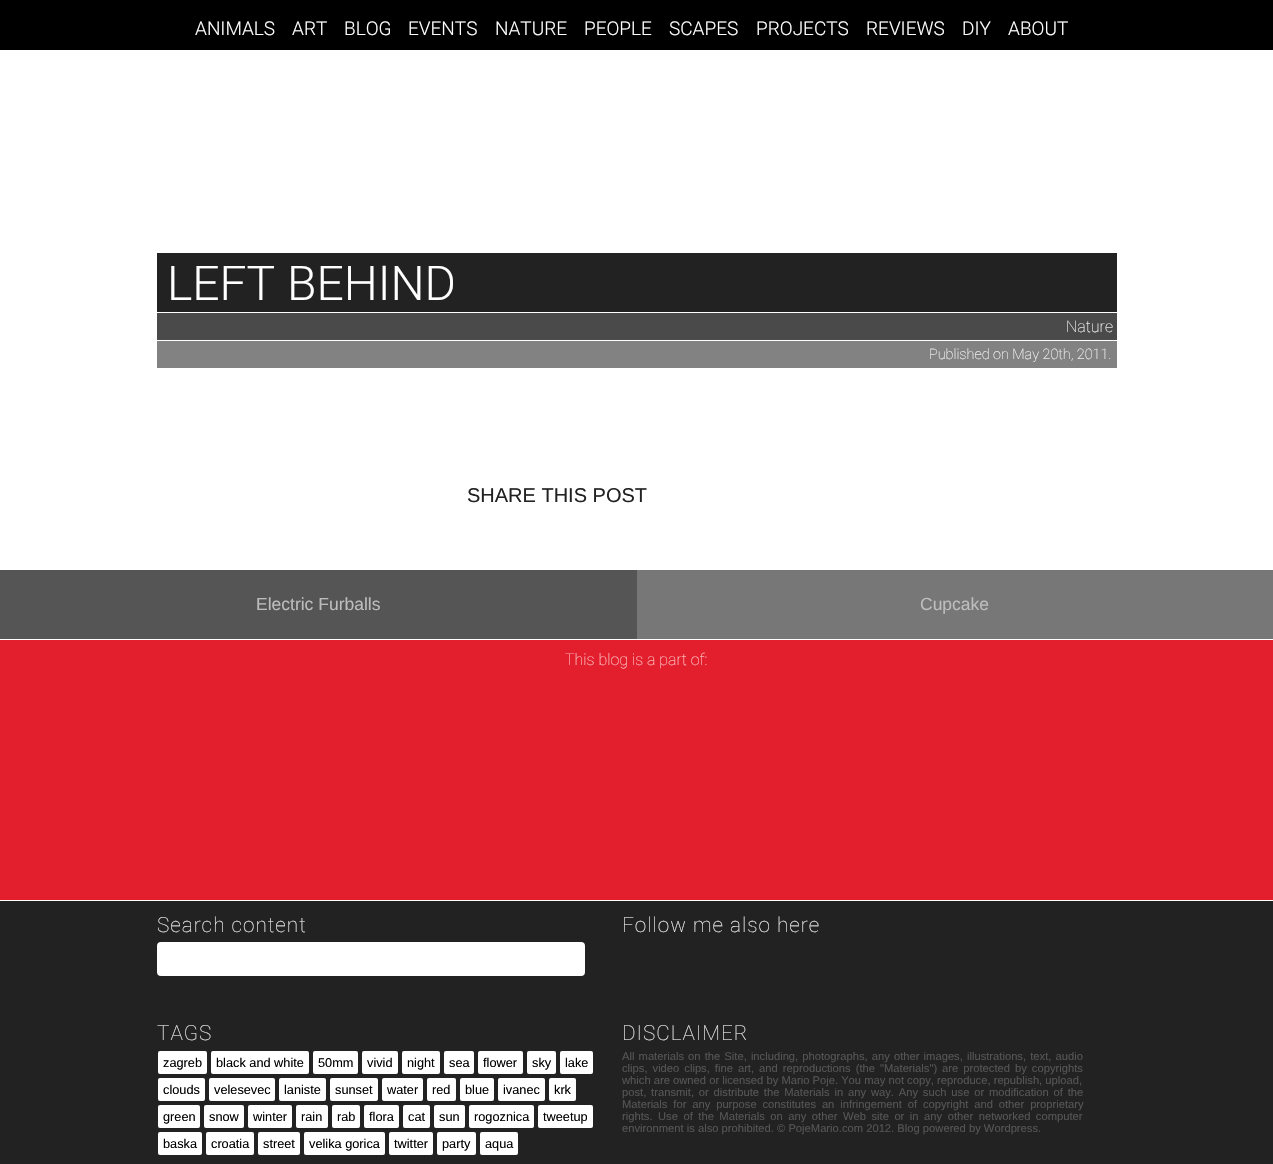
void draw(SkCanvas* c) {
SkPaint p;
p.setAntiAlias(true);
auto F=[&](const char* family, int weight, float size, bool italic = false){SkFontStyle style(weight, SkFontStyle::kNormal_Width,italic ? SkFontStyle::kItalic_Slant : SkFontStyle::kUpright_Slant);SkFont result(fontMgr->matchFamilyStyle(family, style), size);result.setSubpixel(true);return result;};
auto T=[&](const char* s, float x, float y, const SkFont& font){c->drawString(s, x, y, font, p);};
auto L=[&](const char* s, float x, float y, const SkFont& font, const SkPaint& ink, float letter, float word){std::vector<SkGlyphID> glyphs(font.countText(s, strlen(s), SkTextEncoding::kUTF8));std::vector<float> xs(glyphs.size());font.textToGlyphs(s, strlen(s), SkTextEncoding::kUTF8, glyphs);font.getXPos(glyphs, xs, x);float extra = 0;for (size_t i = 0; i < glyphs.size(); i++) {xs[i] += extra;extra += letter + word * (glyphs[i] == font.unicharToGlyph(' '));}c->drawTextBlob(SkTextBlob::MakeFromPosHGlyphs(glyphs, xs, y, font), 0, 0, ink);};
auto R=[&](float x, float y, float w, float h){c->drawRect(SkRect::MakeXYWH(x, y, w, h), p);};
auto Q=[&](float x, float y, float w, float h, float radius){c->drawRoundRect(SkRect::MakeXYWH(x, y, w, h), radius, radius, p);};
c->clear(0xffffffff);
p.setColor(0xff000000);
R(0,0,1273,50);
auto f1 = F("Roboto",300,19);
p.setColor(0xffffffff);
T("ANIMALS",195,35,f1);
T("ART",292,35,f1);
T("BLOG",344,35,f1);
T("EVENTS",408,35,f1);
T("NATURE",495,35,f1);
T("PEOPLE",584,35,f1);
T("SCAPES",669,35,f1);
T("PROJECTS",756,35,f1);
T("REVIEWS",866,35,f1);
T("DIY",962,35,f1);
T("ABOUT",1008,35,f1);
p.setColor(0xff222222);
R(157,253,960,59);
auto f2 = F("Roboto",300,48);
p.setColor(0xffffffff);
T("LEFT BEHIND",167,300,f2);
p.setColor(0xff4a4a4a);
R(157,313,960,27);
auto f3 = F("Roboto",100,16);
p.setColor(0xffffffff);
T("Nature",1066,332,f3);
p.setColor(0xff828282);
R(157,341,960,27);
auto f4 = F("Roboto",100,14.4);
p.setColor(0xffffffff);
T("Published on May 20th, 2011.",929,359,f4);
auto f5 = F("Liberation Sans",400,20);
p.setColor(0xff222222);
T("SHARE THIS POST",467,502,f5);
p.setColor(0xff555555);
R(0,570,637,69);
auto f6 = F("Liberation Sans",400,17.5);
p.setColor(0xffbdbdbd);
T("Electric Furballs",256,610,f6);
p.setColor(0xff777777);
R(637,570,636,69);
p.setColor(0xffbdbdbd);
T("Cupcake",920,610,f6);
p.setColor(0xff222222);
R(0,901,1273,263);
p.setColor(0xffe31f2e);
R(0,640,1273,260);
p.setColor(0xfffecdcd);
T("This blog is a part of:",565,665,f3);
auto f7 = F("Roboto",100,20.75);
p.setColor(0xffeeeeee);
L("Search content",157,932,f7,p,1,0);
p.setColor(0xffffffff);
c->drawRoundRect(SkRect::MakeXYWH(159,944,424,30),2,2,p);
p.setStroke(true);
p.setStrokeWidth(4);
c->drawRoundRect(SkRect::MakeXYWH(159,944,424,30),2,2,p);
p.setStroke(false);
p.setColor(0xffeeeeee);
L("Follow me also here",622,932,f7,p,1,0);
L("TAGS",157,1040,f7,p,1,0);
p.setColor(0xffffffff);
Q(158,1051,49,23,2);
auto f8 = F("Liberation Sans",400,12.75);
p.setColor(0xff000000);
T("zagreb",163,1067,f8);
p.setColor(0xffffffff);
Q(211,1051,98,23,2);
p.setColor(0xff000000);
T("black and white",216,1067,f8);
p.setColor(0xffffffff);
Q(313,1051,45,23,2);
p.setColor(0xff000000);
T("50mm",318,1067,f8);
p.setColor(0xffffffff);
Q(362,1051,36,23,2);
p.setColor(0xff000000);
T("vivid",367,1067,f8);
p.setColor(0xffffffff);
Q(402,1051,38,23,2);
p.setColor(0xff000000);
T("night",407,1067,f8);
p.setColor(0xffffffff);
Q(444,1051,30,23,2);
p.setColor(0xff000000);
T("sea",449,1067,f8);
p.setColor(0xffffffff);
Q(478,1051,45,23,2);
p.setColor(0xff000000);
T("flower",483,1067,f8);
p.setColor(0xffffffff);
Q(527,1051,29,23,2);
p.setColor(0xff000000);
T("sky",532,1067,f8);
p.setColor(0xffffffff);
Q(560,1051,33,23,2);
p.setColor(0xff000000);
T("lake",565,1067,f8);
p.setColor(0xffffffff);
Q(158,1078,47,23,2);
p.setColor(0xff000000);
T("clouds",163,1094,f8);
p.setColor(0xffffffff);
Q(209,1078,66,23,2);
p.setColor(0xff000000);
T("velesevec",214,1094,f8);
p.setColor(0xffffffff);
Q(279,1078,47,23,2);
p.setColor(0xff000000);
T("laniste",284,1094,f8);
p.setColor(0xffffffff);
Q(330,1078,48,23,2);
p.setColor(0xff000000);
T("sunset",335,1094,f8);
p.setColor(0xffffffff);
Q(382,1078,41,23,2);
p.setColor(0xff000000);
T("water",387,1094,f8);
p.setColor(0xffffffff);
Q(427,1078,29,23,2);
p.setColor(0xff000000);
T("red",432,1094,f8);
p.setColor(0xffffffff);
Q(460,1078,34,23,2);
p.setColor(0xff000000);
T("blue",465,1094,f8);
p.setColor(0xffffffff);
Q(498,1078,47,23,2);
p.setColor(0xff000000);
T("ivanec",503,1094,f8);
p.setColor(0xffffffff);
Q(549,1078,27,23,2);
p.setColor(0xff000000);
T("krk",554,1094,f8);
p.setColor(0xffffffff);
Q(158,1105,42,23,2);
p.setColor(0xff000000);
T("green",163,1121,f8);
p.setColor(0xffffffff);
Q(204,1105,40,23,2);
p.setColor(0xff000000);
T("snow",209,1121,f8);
p.setColor(0xffffffff);
Q(248,1105,44,23,2);
p.setColor(0xff000000);
T("winter",253,1121,f8);
p.setColor(0xffffffff);
Q(296,1105,32,23,2);
p.setColor(0xff000000);
T("rain",301,1121,f8);
p.setColor(0xffffffff);
Q(332,1105,28,23,2);
p.setColor(0xff000000);
T("rab",337,1121,f8);
p.setColor(0xffffffff);
Q(364,1105,35,23,2);
p.setColor(0xff000000);
T("flora",369,1121,f8);
p.setColor(0xffffffff);
Q(403,1105,27,23,2);
p.setColor(0xff000000);
T("cat",408,1121,f8);
p.setColor(0xffffffff);
Q(434,1105,31,23,2);
p.setColor(0xff000000);
T("sun",439,1121,f8);
p.setColor(0xffffffff);
Q(469,1105,65,23,2);
p.setColor(0xff000000);
T("rogoznica",474,1121,f8);
p.setColor(0xffffffff);
Q(538,1105,55,23,2);
p.setColor(0xff000000);
T("tweetup",543,1121,f8);
p.setColor(0xffffffff);
Q(158,1132,44,23,2);
p.setColor(0xff000000);
T("baska",163,1148,f8);
p.setColor(0xffffffff);
Q(206,1132,48,23,2);
p.setColor(0xff000000);
T("croatia",211,1148,f8);
p.setColor(0xffffffff);
Q(258,1132,42,23,2);
p.setColor(0xff000000);
T("street",263,1148,f8);
p.setColor(0xffffffff);
Q(304,1132,81,23,2);
p.setColor(0xff000000);
T("velika gorica",309,1148,f8);
p.setColor(0xffffffff);
Q(389,1132,44,23,2);
p.setColor(0xff000000);
T("twitter",394,1148,f8);
p.setColor(0xffffffff);
Q(437,1132,39,23,2);
p.setColor(0xff000000);
T("party",442,1148,f8);
p.setColor(0xffffffff);
Q(480,1132,38,23,2);
p.setColor(0xff000000);
T("aqua",485,1148,f8);
p.setColor(0xffeeeeee);
L("DISCLAIMER",622,1040,f7,p,1,0);
auto f9 = F("Liberation Sans",400,11.2);
p.setColor(0xff555555);
L("All materials on the Site, including, photographs, any other images, illustrations, text, audio",622,1060,f9,p,0,1);
L("clips, video clips, fine art, and reproductions (the \"Materials\") are protected by copyrights",622,1072,f9,p,0,1.9);
T("which are owned or licensed by Mario Poje. You may not copy, reproduce, republish, upload,",622,1084,f9);
L("post, transmit, or distribute the Materials in any way. Any such use or modification of the",622,1096,f9,p,0,1.7);
L("Materials for any purpose constitutes an infringement of copyright and other proprietary",622,1108,f9,p,0,2.75);
L("rights. Use of the Materials on any other Web site or in any other networked computer",622,1120,f9,p,0,2.4);
T("environment is also prohibited. © PojeMario.com 2012. Blog powered by Wordpress.",622,1132,f9);
}
